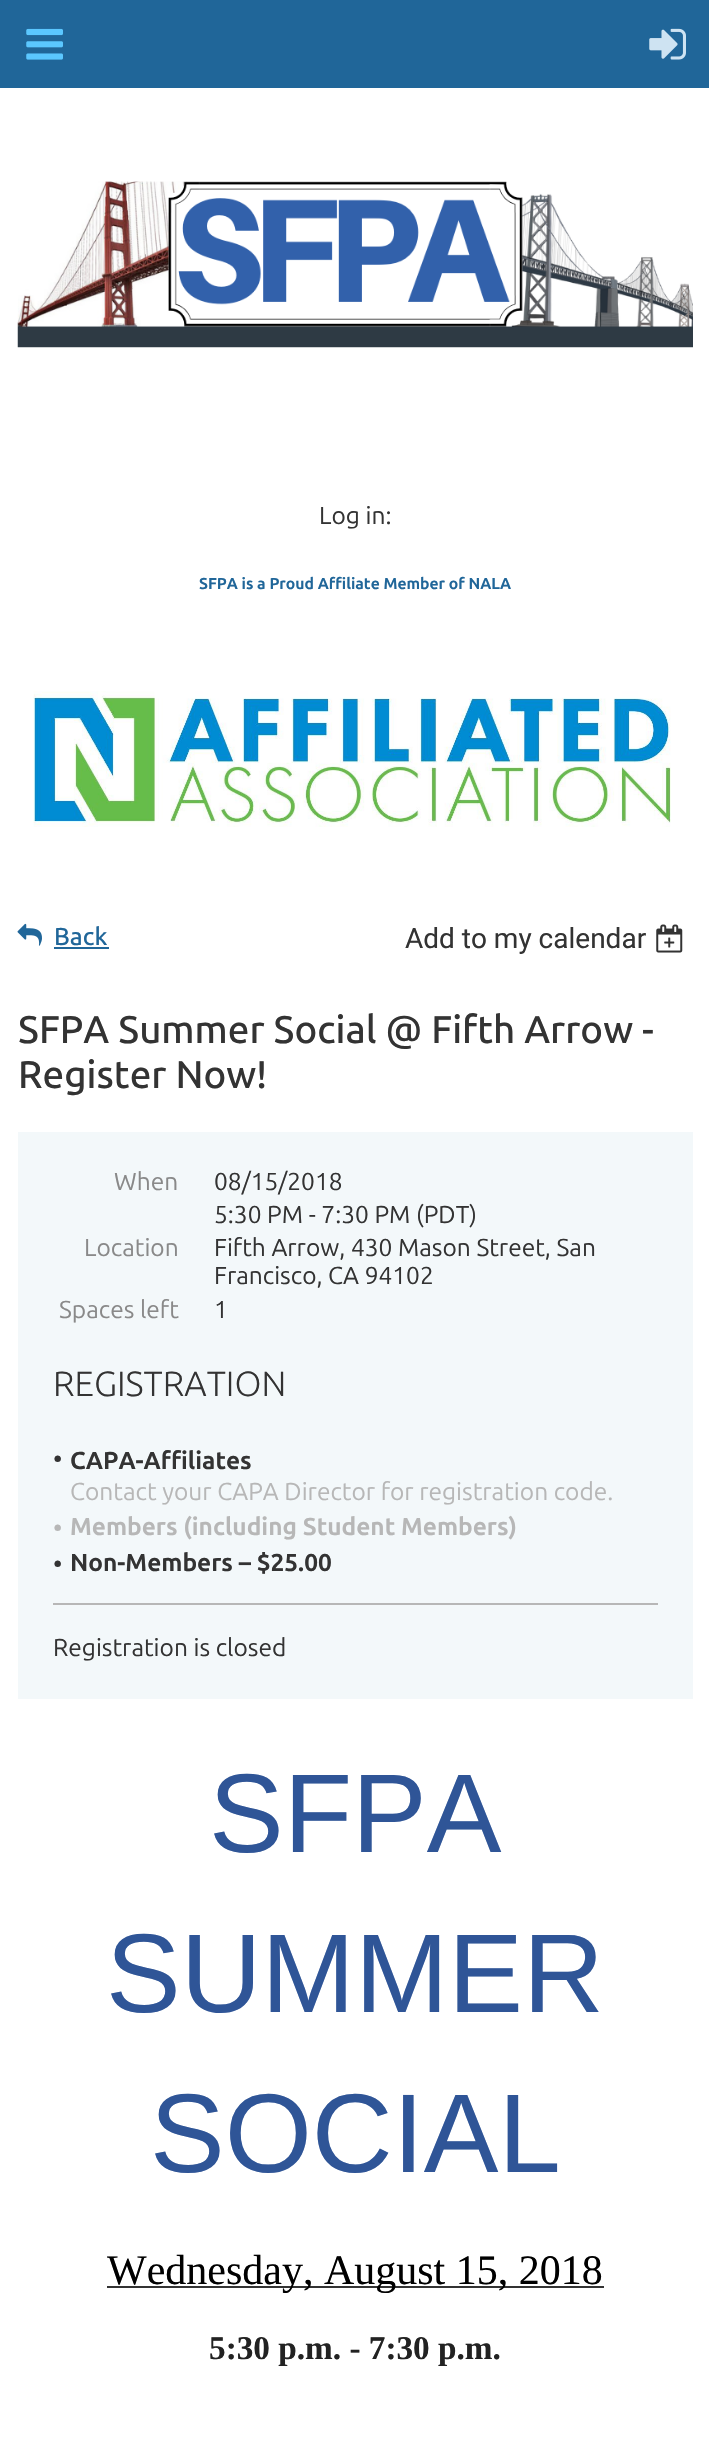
void draw(SkCanvas* c) {
SkPaint p;
p.setAntiAlias(true);
auto F=[&](const char* family, int weight, float size, bool italic = false){SkFontStyle style(weight, SkFontStyle::kNormal_Width,italic ? SkFontStyle::kItalic_Slant : SkFontStyle::kUpright_Slant);SkFont result(fontMgr->matchFamilyStyle(family, style), size);result.setSubpixel(true);return result;};
auto T=[&](const char* s, float x, float y, const SkFont& font){c->drawString(s, x, y, font, p);};
auto R=[&](float x, float y, float w, float h){c->drawRect(SkRect::MakeXYWH(x, y, w, h), p);};
auto I=[&](const char* path, float x, float y, float w, float h){auto image = SkImages::DeferredFromEncodedData(SkData::MakeFromFileName(path));c->drawImageRect(image, SkRect::MakeXYWH(x, y, w, h), SkSamplingOptions());};
c->clear(0xffffffff);
p.setColor(0xff206699);
R(0,0,709,88);
I("1.png",26,28,37,32);
I("2.png",649,28,37,32);
I("3.png",17,181,676,167);
auto f1 = F("Ubuntu",400,24.5);
p.setColor(0xff333333);
T("Log in:",319,524,f1);
auto f2 = F("Ubuntu",700,15.75);
p.setColor(0xff206699);
T("SFPA is a Proud Affiliate Member of NALA",199,589,f2);
I("4.png",33,691,638,136);
I("5.png",17,923,25,23);
auto f3 = F("Ubuntu",500,24.5);
T("Back",54,945,f3);
R(54,947,55,2);
auto f4 = F("Roboto",400,28);
p.setColor(0xff333333);
T("Add to my calendar",405,948,f4);
I("6.png",656,924,27,29);
auto f5 = F("Ubuntu",500,38.5);
T("SFPA Summer Social @ Fifth Arrow -",18,1043,f5);
T("Register Now!",18,1088,f5);
p.setColor(0xfff3f8fa);
R(18,1132,675,567);
p.setColor(0xff898989);
T("When",114,1190,f1);
p.setColor(0xff333333);
T("08/15/2018",214,1190,f1);
T("5:30 PM - 7:30 PM (PDT)",214,1223,f1);
p.setColor(0xff898989);
T("Location",84,1256,f1);
p.setColor(0xff333333);
T("Fifth Arrow, 430 Mason Street, San",214,1256,f1);
T("Francisco, CA 94102",214,1284,f1);
p.setColor(0xff898989);
T("Spaces left",59,1318,f1);
p.setColor(0xff333333);
T("1",214,1318,f1);
auto f6 = F("Ubuntu",300,35);
T("REGISTRATION",53,1396,f6);
auto f7 = F("Ubuntu",400,26);
T("•",53,1468,f7);
auto f8 = F("Ubuntu",700,24.5);
T("CAPA-Affiliates",70,1469,f8);
p.setColor(0xffb7b7b7);
T("Contact your CAPA Director for registration code.",70,1500,f1);
T("•",53,1537,f7);
T("Members (including Student Members)",70,1535,f8);
p.setColor(0xff333333);
T("•",53,1573,f7);
T("Non-Members – $25.00",70,1571,f8);
p.setColor(0xffb7b7b7);
R(53,1603,605,2);
p.setColor(0xff333333);
T("Registration is closed",53,1656,f1);
auto f9 = F("Liberation Sans",400,112);
p.setColor(0xff2f5597);
T("SFPA",209,1852,f9);
T("SUMMER",106,2012,f9);
T("SOCIAL",150,2172,f9);
p.setColor(0xff333333);
R(107,2286,497,2);
auto f10 = F("Liberation Serif",400,42);
p.setColor(0xff000000);
T("Wednesday, August 15, 2018",107,2284,f10);
auto f11 = F("Liberation Serif",700,33.25);
p.setColor(0xff222222);
T("5:30 p.m. - 7:30 p.m.",209,2359,f11);
}
